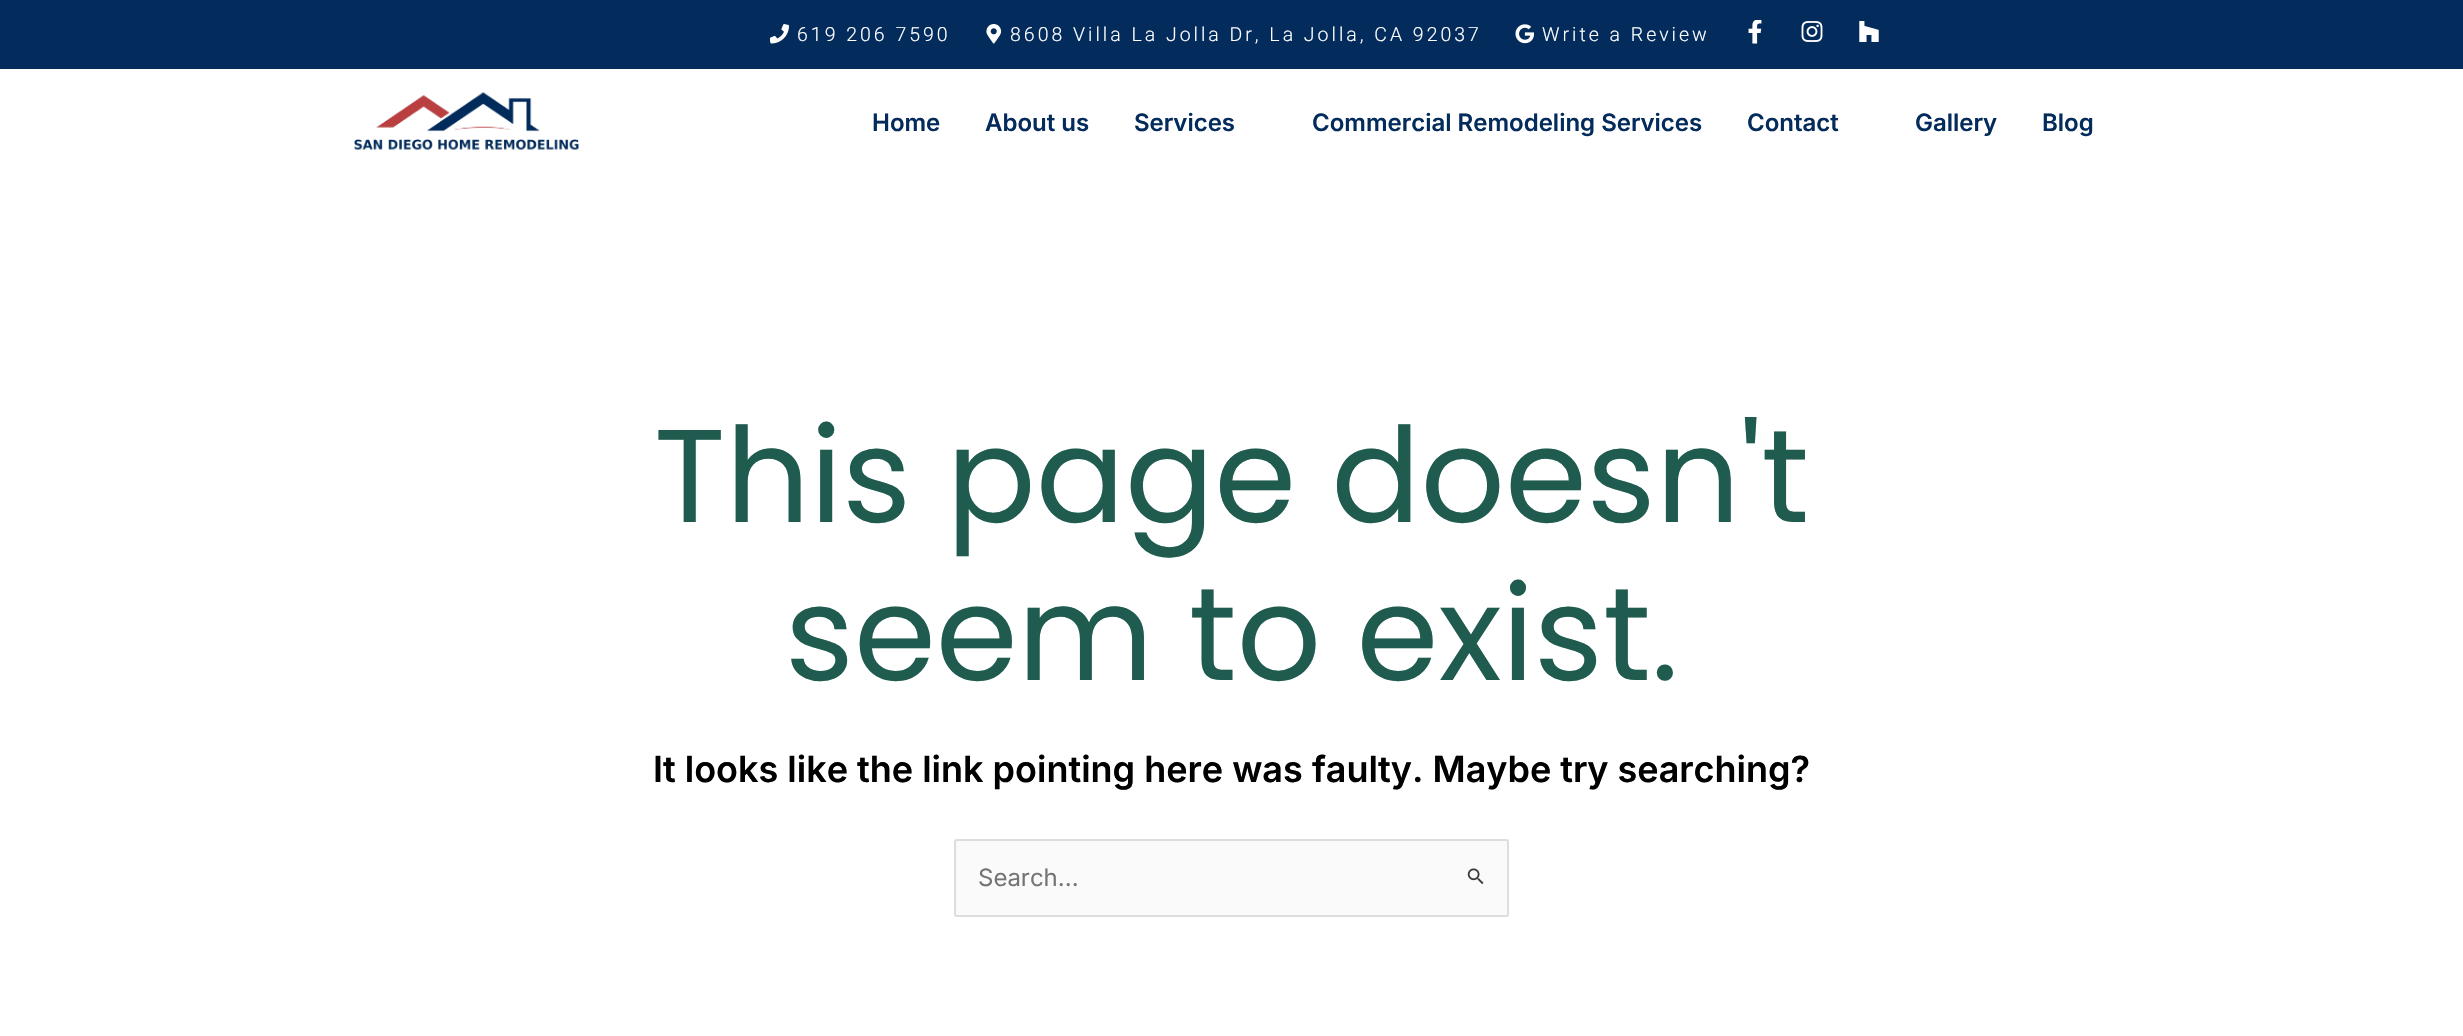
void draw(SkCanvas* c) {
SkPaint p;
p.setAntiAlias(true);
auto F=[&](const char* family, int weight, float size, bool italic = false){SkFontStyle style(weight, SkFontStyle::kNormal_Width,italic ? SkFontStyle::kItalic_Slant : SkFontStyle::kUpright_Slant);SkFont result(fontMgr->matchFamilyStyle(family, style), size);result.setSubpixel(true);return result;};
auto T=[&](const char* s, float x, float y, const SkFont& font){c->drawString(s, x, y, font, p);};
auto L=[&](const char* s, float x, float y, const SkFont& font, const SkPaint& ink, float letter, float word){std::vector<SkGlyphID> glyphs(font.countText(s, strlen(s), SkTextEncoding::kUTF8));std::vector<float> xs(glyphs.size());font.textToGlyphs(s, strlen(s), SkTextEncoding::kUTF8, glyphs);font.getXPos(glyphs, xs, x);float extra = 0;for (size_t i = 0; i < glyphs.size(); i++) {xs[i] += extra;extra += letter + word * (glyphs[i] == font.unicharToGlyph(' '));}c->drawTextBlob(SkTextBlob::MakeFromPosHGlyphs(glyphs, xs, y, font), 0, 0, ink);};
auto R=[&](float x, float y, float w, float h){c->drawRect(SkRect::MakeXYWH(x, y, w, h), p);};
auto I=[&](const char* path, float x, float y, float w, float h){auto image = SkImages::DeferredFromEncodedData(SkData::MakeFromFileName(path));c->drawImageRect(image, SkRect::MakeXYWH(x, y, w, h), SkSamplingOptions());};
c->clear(0xffffffff);
p.setColor(0xff032b5b);
R(0,0,2463,69);
I("1.png",770,24,19,20);
auto f1 = F("Roboto",300,19.5);
p.setColor(0xffffffff);
L("619 206 7590",797,41,f1,p,3,0);
I("2.png",986,24,16,20);
L("8608 Villa La Jolla Dr, La Jolla, CA 92037",1010,41,f1,p,3,0);
I("3.png",1515,24,19,20);
L("Write a Review",1542,41,f1,p,3,0);
I("4.png",1748,20,14,24);
I("5.png",1801,21,22,21);
I("6.png",1859,21,20,21);
I("7.png",354,92,225,58);
auto f2 = F("Inter",600,24);
p.setColor(0xff032b5b);
T("Home",872,131,f2);
T("About us",985,131,f2);
T("Services",1134,131,f2);
T("Commercial Remodeling Services",1312,131,f2);
T("Contact",1747,131,f2);
T("Gallery",1915,131,f2);
T("Blog",2042,131,f2);
auto f3 = F("Poppins",400,132);
p.setColor(0xff205b4f);
T("This page doesn't",654,522,f3);
T("seem to exist.",785,680,f3);
auto f4 = F("Inter",600,36);
p.setColor(0xff000000);
T("It looks like the link pointing here was faulty. Maybe try searching?",653,782,f4);
p.setColor(0xfffafafa);
c->drawRoundRect(SkRect::MakeXYWH(955,840,553,76),2,2,p);
p.setStroke(true);
p.setStrokeWidth(2);
p.setColor(0xffdddddd);
c->drawRoundRect(SkRect::MakeXYWH(955,840,553,76),2,2,p);
auto f5 = F("Inter",400,24);
p.setStroke(false);
p.setColor(0xff757575);
T("Search...",978,886,f5);
I("8.png",1467,868,17,17);
}
